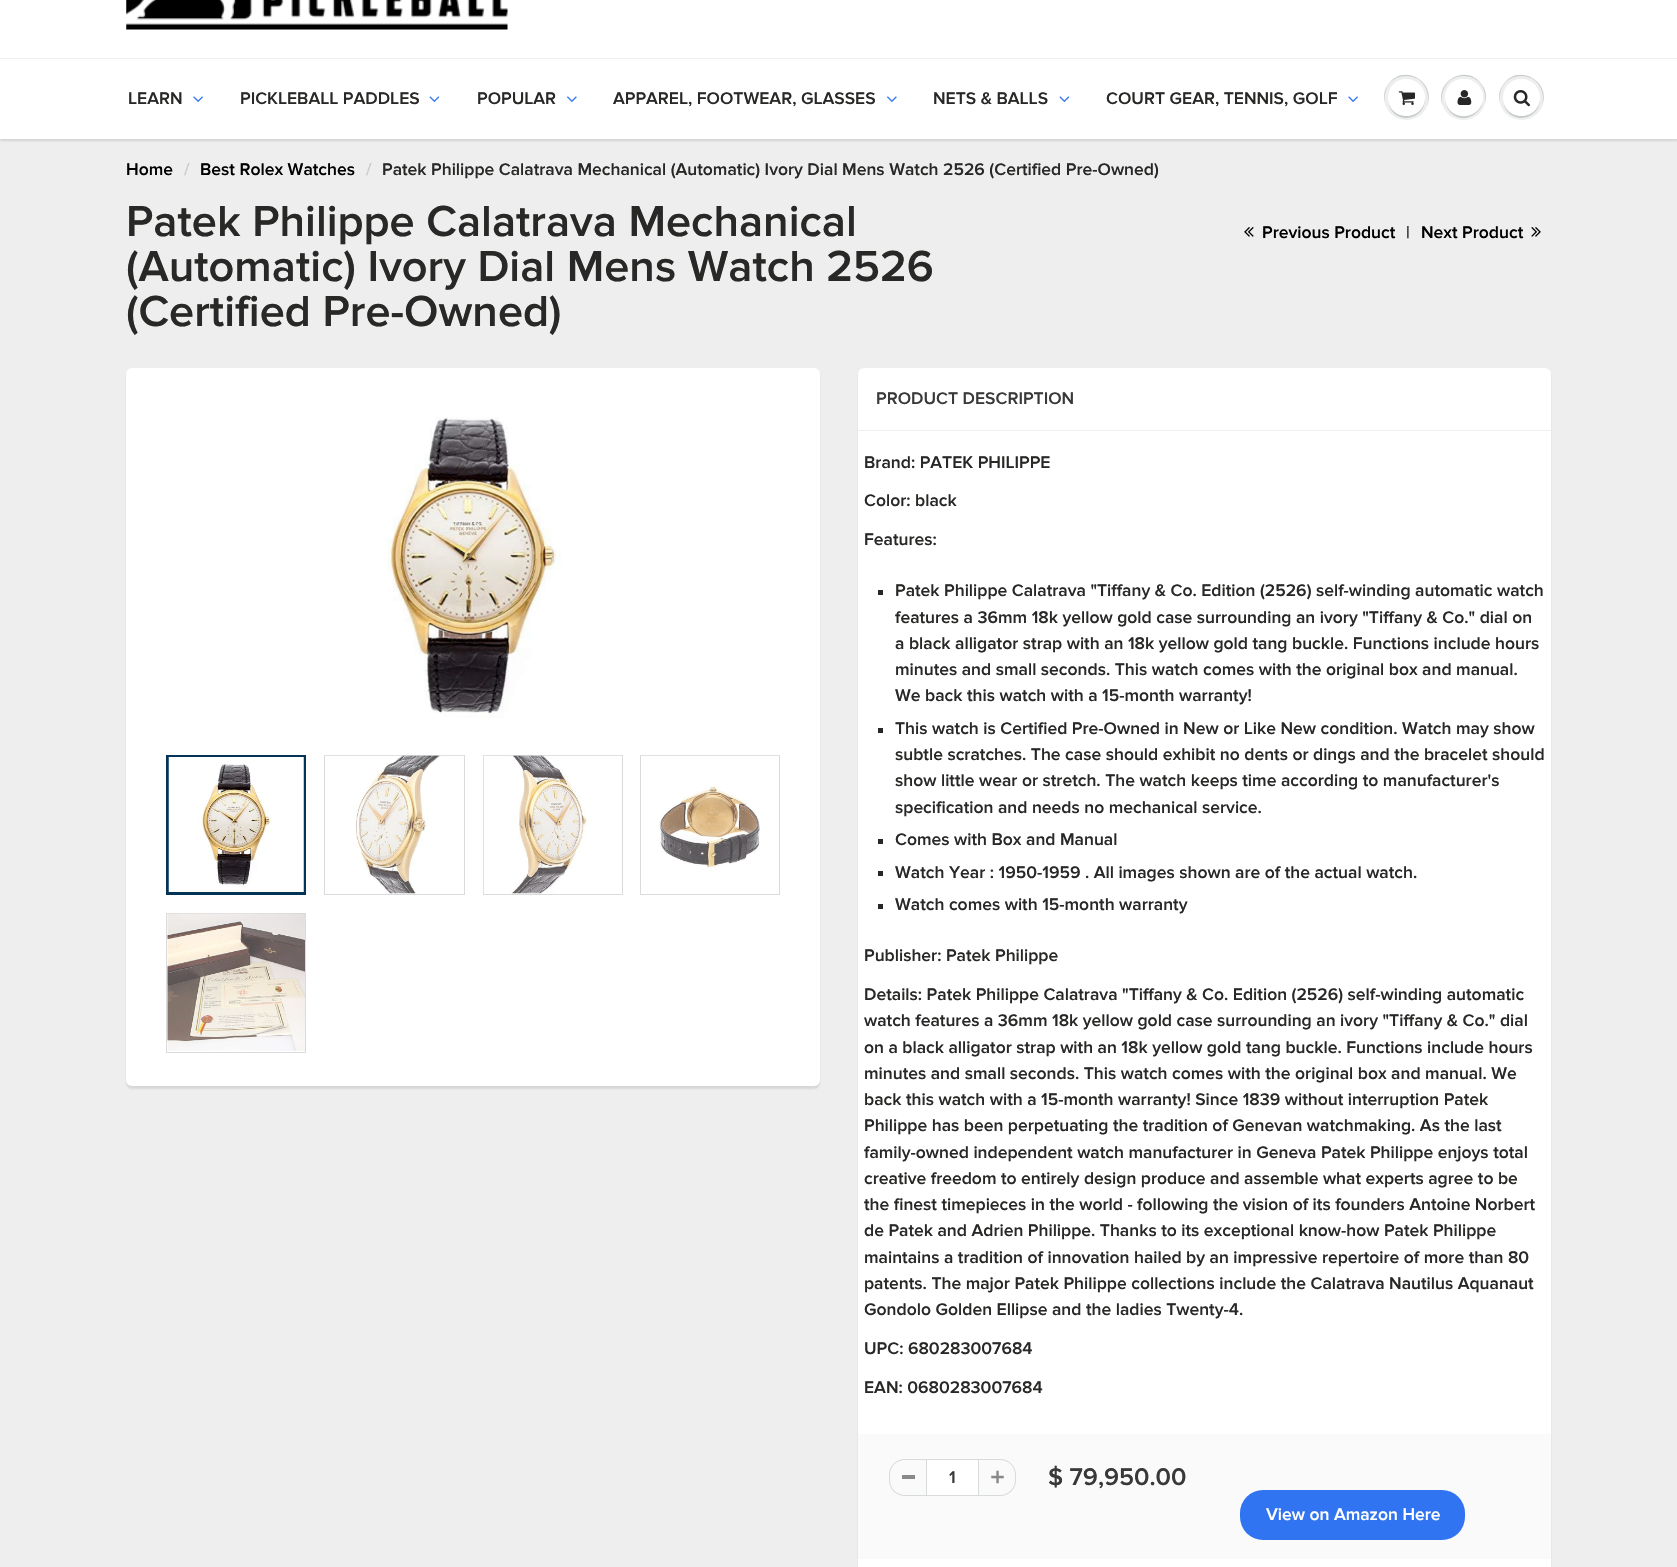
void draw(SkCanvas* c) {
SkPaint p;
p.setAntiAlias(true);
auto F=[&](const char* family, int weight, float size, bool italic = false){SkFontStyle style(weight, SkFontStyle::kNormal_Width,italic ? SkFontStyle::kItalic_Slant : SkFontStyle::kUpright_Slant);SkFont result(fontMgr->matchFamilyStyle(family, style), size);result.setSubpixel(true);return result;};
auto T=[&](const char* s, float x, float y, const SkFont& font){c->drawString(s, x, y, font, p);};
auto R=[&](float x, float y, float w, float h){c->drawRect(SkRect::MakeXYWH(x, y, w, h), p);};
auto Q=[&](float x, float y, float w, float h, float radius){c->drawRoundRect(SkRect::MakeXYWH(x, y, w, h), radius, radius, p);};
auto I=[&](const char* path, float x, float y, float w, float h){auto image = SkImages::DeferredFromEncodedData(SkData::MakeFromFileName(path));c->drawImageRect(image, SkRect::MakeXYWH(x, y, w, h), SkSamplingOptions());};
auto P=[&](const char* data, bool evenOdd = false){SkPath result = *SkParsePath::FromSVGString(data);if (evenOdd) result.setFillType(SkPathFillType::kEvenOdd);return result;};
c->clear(0xffffffff);
I("1.png",126,0,382,30);
p.setColor(0xffedefef);
c->drawCircle(1406.5,97.5,22.5,p);
p.setColor(0xffc9cbcb);
c->drawPath(P("M1406 76c18 0 25 17 21 30c10-24-24-44-39-21c-4 5-5 12-3 18c-2-13 5-27 21-27z"),p);
p.setColor(0xffedefef);
c->drawCircle(1463.5,97.5,22.5,p);
p.setColor(0xffc9cbcb);
c->drawPath(P("M1464 76c16 0 23 14 21 27c2-6 1-13-3-18c-15-23-49-3-39 21c-4-13 3-30 21-30z"),p);
p.setColor(0xffedefef);
c->drawCircle(1521.5,97.5,22.5,p);
p.setColor(0xffc9cbcb);
c->drawPath(P("M1521 76c18 0 25 17 21 30c10-24-24-44-39-21c-4 5-5 12-3 18c-2-13 5-27 21-27z"),p);
p.setColor(0xffeeeeee);
R(0,139,1677,1428);
c->save();
c->clipPath(P("M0 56h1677v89h-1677zm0 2h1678v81h-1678z",true),true);
p.setColor(0x1f0b191c);
p.setMaskFilter(SkMaskFilter::MakeBlur(kNormal_SkBlurStyle, 1));
c->drawRect(SkRect::MakeXYWH(0,60,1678,81),p);
p.setMaskFilter(nullptr);
c->restore();
p.setColor(0xffecefef);
R(0,58,1677,1);
auto f1 = F("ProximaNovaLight",600,17.5);
p.setColor(0xff282827);
T("LEARN",128,104,f1);
I("2.png",193,96,10,6);
T("PICKLEBALL PADDLES",240,104,f1);
I("3.png",429,96,11,6);
T("POPULAR",477,104,f1);
I("4.png",567,96,10,6);
T("APPAREL, FOOTWEAR, GLASSES",613,104,f1);
I("4.png",887,96,10,6);
T("NETS & BALLS",933,104,f1);
I("3.png",1059,96,11,6);
T("COURT GEAR, TENNIS, GOLF",1106,104,f1);
I("2.png",1348,96,10,6);
p.setColor(0xffc9cbcb);
c->drawPath(P("M1425 98c-.5 21-30.5 25-36.5 5c4 22 37 19 36.5-5z"),p);
p.setColor(0xffffffff);
c->drawCircle(1406.5,97.5,18.5,p);
c->drawPath(P("M1406 80c13.5 0 19.5 11 18.5 21c4-19.5-22-30.5-33.5-14c-2 3.5-3 7.5-3 11c.5-9 6.5-18 18-18z"),p);
I("5.png",1398,91,17,14);
p.setColor(0xffc9cbcb);
c->drawPath(P("M1445 98c0 5.5 2 10.5 5.5 14.5c14.5 14.5 38.5-2 31-20.5c5.5 18-17 32.5-31 19c-3-3.5-5.5-8-5.5-13z"),p);
p.setColor(0xffffffff);
Q(1445,79,38,37,18.5);
c->drawPath(P("M1464 80c15 0 21 15 17 26c11-20-20-38-33-19c-3 4-4 9-3 14c-1-10 6-21 19-21z"),p);
I("6.png",1457,90,15,15);
p.setColor(0xffc9cbcb);
c->drawPath(P("M1540 98c-.5 21-30.5 25-36.5 5c4 22 37 19 36.5-5z"),p);
p.setColor(0xffffffff);
c->drawCircle(1521.5,97.5,18.5,p);
c->drawPath(P("M1521 80c13.5 0 19.5 11 18.5 21c4-19.5-22-30.5-33.5-14c-2 3.5-3 7.5-3 11c.5-9 6.5-18 18-18z"),p);
I("7.png",1513,90,17,17);
p.setColor(0xff000000);
T("Home",126,175,f1);
p.setColor(0xffcccccc);
T("/",184,175,f1);
p.setColor(0xff000000);
T("Best Rolex Watches",200,175,f1);
p.setColor(0xffcccccc);
T("/",366,175,f1);
p.setColor(0xff282827);
T("Patek Philippe Calatrava Mechanical (Automatic) Ivory Dial Mens Watch 2526 (Certified Pre-Owned)",382,175,f1);
auto f2 = F("ProximaNovaLight",600,45);
T("Patek Philippe Calatrava Mechanical",126,236,f2);
T("(Automatic) Ivory Dial Mens Watch 2526",126,281,f2);
T("(Certified Pre-Owned)",126,326,f2);
I("8.png",1244,227,10,10);
p.setColor(0xff000000);
T("Previous Product",1262,238,f1);
p.setColor(0xff282827);
T("|",1406,238,f1);
p.setColor(0xff000000);
T("Next Product",1421,238,f1);
I("9.png",1531,227,10,10);
p.setColor(0x1a0b191c);
p.setMaskFilter(SkMaskFilter::MakeBlur(kNormal_SkBlurStyle, 1));
c->drawRoundRect(SkRect::MakeXYWH(126,370,694,719),6,6,p);
p.setMaskFilter(nullptr);
p.setColor(0xffffffff);
Q(126,368,694,718,6);
I("10.png",385,417,176,301);
p.setStroke(true);
p.setStrokeWidth(3);
p.setColor(0xff033357);
c->drawRect(SkRect::MakeXYWH(167.5,756.5,137,137),p);
I("11.png",168,757,136,135);
p.setStrokeWidth(1);
p.setColor(0xffdbdbdb);
c->drawRect(SkRect::MakeXYWH(324.5,755.5,140,139),p);
I("12.png",325,755,139,139);
c->drawRect(SkRect::MakeXYWH(483.5,755.5,139,139),p);
I("13.png",483,755,138,139);
c->drawRect(SkRect::MakeXYWH(640.5,755.5,139,139),p);
I("14.png",641,755,138,115);
c->drawRect(SkRect::MakeXYWH(166.5,913.5,139,139),p);
I("15.png",167,913,138,138);
p.setStroke(false);
p.setColor(0x1a0b191c);
p.setMaskFilter(SkMaskFilter::MakeBlur(kNormal_SkBlurStyle, 1));
c->drawRoundRect(SkRect::MakeXYWH(858,370,693,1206),6,6,p);
p.setMaskFilter(nullptr);
p.setColor(0xffffffff);
Q(858,368,693,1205,6);
p.setColor(0xffefefef);
R(858,430,693,1);
p.setColor(0xff393939);
T("PRODUCT DESCRIPTION",876,404,f1);
p.setColor(0xff282827);
T("Brand: PATEK PHILIPPE",864,468,f1);
T("Color: black",864,506,f1);
T("Features:",864,545,f1);
p.setColor(0xff282727);
R(878,590,5,5);
p.setColor(0xff282827);
T("Patek Philippe Calatrava \"Tiffany & Co. Edition (2526) self-winding automatic watch",895,596,f1);
T("features a 36mm 18k yellow gold case surrounding an ivory \"Tiffany & Co.\" dial on",895,623,f1);
T("a black alligator strap with an 18k yellow gold tang buckle. Functions include hours",895,649,f1);
T("minutes and small seconds. This watch comes with the original box and manual.",895,675,f1);
T("We back this watch with a 15-month warranty!",895,701,f1);
p.setColor(0xff282727);
R(878,728,5,5);
p.setColor(0xff282827);
T("This watch is Certified Pre-Owned in New or Like New condition. Watch may show",895,734,f1);
T("subtle scratches. The case should exhibit no dents or dings and the bracelet should",895,760,f1);
T("show little wear or stretch. The watch keeps time according to manufacturer's",895,786,f1);
T("specification and needs no mechanical service.",895,813,f1);
p.setColor(0xff282727);
R(878,839,5,5);
p.setColor(0xff282827);
T("Comes with Box and Manual",895,845,f1);
p.setColor(0xff282727);
R(878,871,5,5);
p.setColor(0xff282827);
T("Watch Year : 1950-1959 . All images shown are of the actual watch.",895,878,f1);
p.setColor(0xff282727);
R(878,904,5,5);
p.setColor(0xff282827);
T("Watch comes with 15-month warranty",895,910,f1);
T("Publisher: Patek Philippe",864,961,f1);
T("Details: Patek Philippe Calatrava \"Tiffany & Co. Edition (2526) self-winding automatic",864,1000,f1);
T("watch features a 36mm 18k yellow gold case surrounding an ivory \"Tiffany & Co.\" dial",864,1026,f1);
T("on a black alligator strap with an 18k yellow gold tang buckle. Functions include hours",864,1053,f1);
T("minutes and small seconds. This watch comes with the original box and manual. We",864,1079,f1);
T("back this watch with a 15-month warranty! Since 1839 without interruption Patek",864,1105,f1);
T("Philippe has been perpetuating the tradition of Genevan watchmaking. As the last",864,1131,f1);
T("family-owned independent watch manufacturer in Geneva Patek Philippe enjoys total",864,1158,f1);
T("creative freedom to entirely design produce and assemble what experts agree to be",864,1184,f1);
T("the finest timepieces in the world - following the vision of its founders Antoine Norbert",864,1210,f1);
T("de Patek and Adrien Philippe. Thanks to its exceptional know-how Patek Philippe",864,1236,f1);
T("maintains a tradition of innovation hailed by an impressive repertoire of more than 80",864,1263,f1);
T("patents. The major Patek Philippe collections include the Calatrava Nautilus Aquanaut",864,1289,f1);
T("Gondolo Golden Ellipse and the ladies Twenty-4.",864,1315,f1);
T("UPC: 680283007684",864,1354,f1);
T("EAN: 0680283007684",864,1393,f1);
p.setColor(0xfffafafa);
R(858,1434,693,125);
p.setColor(0xff898989);
R(902,1475,13,4);
p.setColor(0xffd7dbdb);
c->drawPath(P("M905 1459h21v37h-21c-9 0-16-7-16-16v-5c0-9 7-16 16-16zm0 1h21v35h-21c-8.5 0-15-6.5-15-15v-5c0-8.5 6.5-15 15-15z",true),p);
p.setColor(0xffffffff);
c->drawRect(SkRect::MakeXYWH(926.5,1459.5,52,36),p);
p.setStroke(true);
p.setColor(0xffd7dbdb);
c->drawRect(SkRect::MakeXYWH(926.5,1459.5,52,36),p);
p.setStroke(false);
p.setColor(0xff393939);
T("1",949,1483,f1);
I("16.png",991,1470,13,14);
p.setColor(0xffd7dbdb);
c->drawPath(P("M979 1459h21c9 0 16 7 16 16v5c0 9-7 16-16 16h-21zm0 1h21c8.5 0 15 6.5 15 15v5c0 8.5-6.5 15-15 15h-21z",true),p);
auto f3 = F("ProximaNovaLight",600,25);
p.setColor(0xff393939);
T("$ 79,950.00",1048,1485,f3);
p.setColor(0xff3174f1);
Q(1240,1490,225,50,23);
p.setColor(0xffffffff);
T("View on Amazon Here",1266,1520,f1);
}
